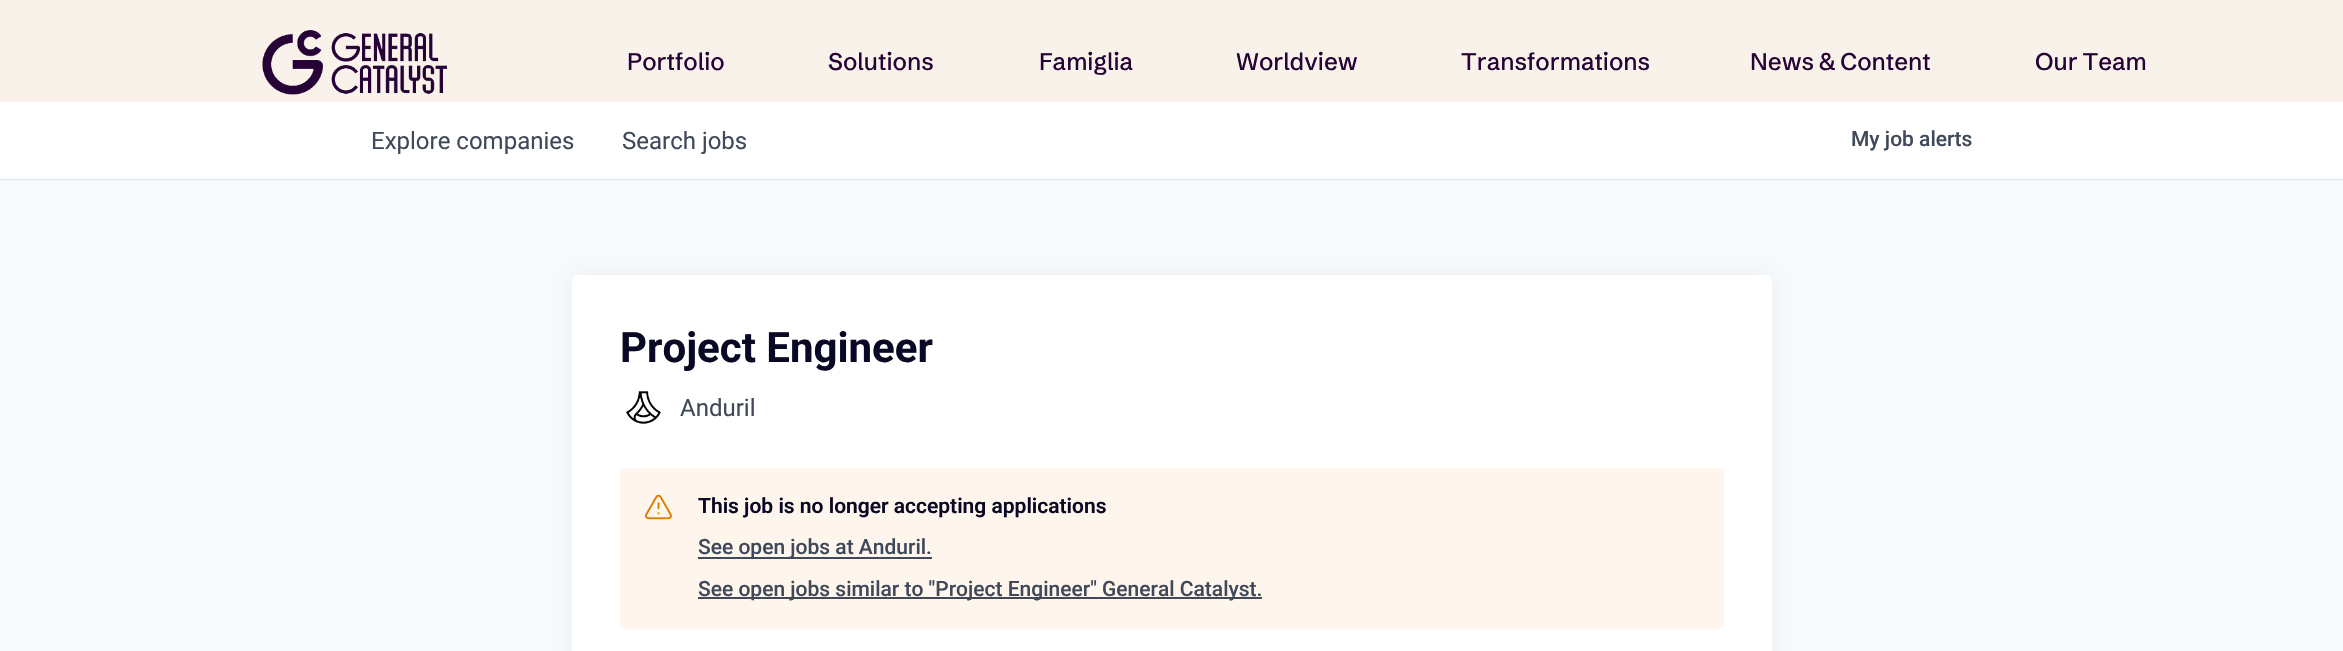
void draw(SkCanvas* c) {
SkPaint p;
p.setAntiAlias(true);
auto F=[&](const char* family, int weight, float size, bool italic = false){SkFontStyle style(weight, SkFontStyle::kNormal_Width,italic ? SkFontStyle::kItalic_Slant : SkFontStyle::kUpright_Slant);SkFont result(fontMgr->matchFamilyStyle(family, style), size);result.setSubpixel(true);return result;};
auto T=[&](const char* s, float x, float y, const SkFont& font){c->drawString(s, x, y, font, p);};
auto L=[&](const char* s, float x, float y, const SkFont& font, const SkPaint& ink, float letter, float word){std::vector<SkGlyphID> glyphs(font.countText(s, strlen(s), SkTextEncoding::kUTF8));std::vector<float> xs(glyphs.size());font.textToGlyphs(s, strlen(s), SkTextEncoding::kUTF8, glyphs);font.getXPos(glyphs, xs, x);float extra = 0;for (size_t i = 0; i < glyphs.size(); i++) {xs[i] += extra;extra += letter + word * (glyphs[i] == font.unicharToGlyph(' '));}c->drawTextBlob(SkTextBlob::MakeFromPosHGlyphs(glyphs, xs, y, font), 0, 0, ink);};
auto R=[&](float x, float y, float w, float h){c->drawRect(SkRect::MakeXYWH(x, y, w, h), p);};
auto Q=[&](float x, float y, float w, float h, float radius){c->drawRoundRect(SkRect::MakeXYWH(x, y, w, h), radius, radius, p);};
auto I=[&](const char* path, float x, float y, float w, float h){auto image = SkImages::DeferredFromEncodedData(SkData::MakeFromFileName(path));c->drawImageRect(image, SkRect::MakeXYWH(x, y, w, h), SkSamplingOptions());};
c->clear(0xfff7fafc);
p.setColor(0xfff8f2ea);
R(0,0,2343,102);
I("1.png",262,30,185,65);
auto f1 = F("Schibsted Grotesk",500,24);
p.setColor(0xff260237);
T("Portfolio",627,70,f1);
T("Solutions",828,70,f1);
T("Famiglia",1039,70,f1);
T("Worldview",1236,70,f1);
T("Transformations",1461,70,f1);
L("News & Content",1750,70,f1,p,0,-1);
L("Our Team",2035,70,f1,p,0,-1);
p.setColor(0xffe5e5e5);
R(0,179,2343,1);
p.setColor(0xffffffff);
R(0,102,2343,77);
auto f2 = F("Roboto",400,24);
p.setColor(0xff3f495a);
T("Explore companies",371,149,f2);
T("Search jobs",622,149,f2);
auto f3 = F("Roboto",500,21);
T("My job alerts",1851,146,f3);
p.setColor(0x0f1b2432);
p.setMaskFilter(SkMaskFilter::MakeBlur(kNormal_SkBlurStyle, 12));
c->drawRoundRect(SkRect::MakeXYWH(572,276,1200,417),6,6,p);
p.setMaskFilter(nullptr);
p.setColor(0xffffffff);
Q(572,275,1200,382,6);
auto f4 = F("Roboto",700,42);
p.setColor(0xff090925);
T("Project Engineer",620,362,f4);
I("2.png",626,391,35,33);
p.setColor(0xff3f495a);
T("Anduril",680,416,f2);
p.setColor(0xfffef5ec);
Q(620,468,1104,161,6);
I("3.png",645,494,27,26);
auto f5 = F("Roboto",600,21);
p.setColor(0xff090925);
T("This job is no longer accepting applications",698,513,f5);
p.setColor(0xff3f495a);
R(698,557,234,2);
T("See open jobs at Anduril.",698,554,f3);
R(698,597,391,2);
T("See open jobs similar to \"Project Engineer\"",698,596,f3);
R(1089,597,173,2);
T("General Catalyst.",1102,596,f3);
}
